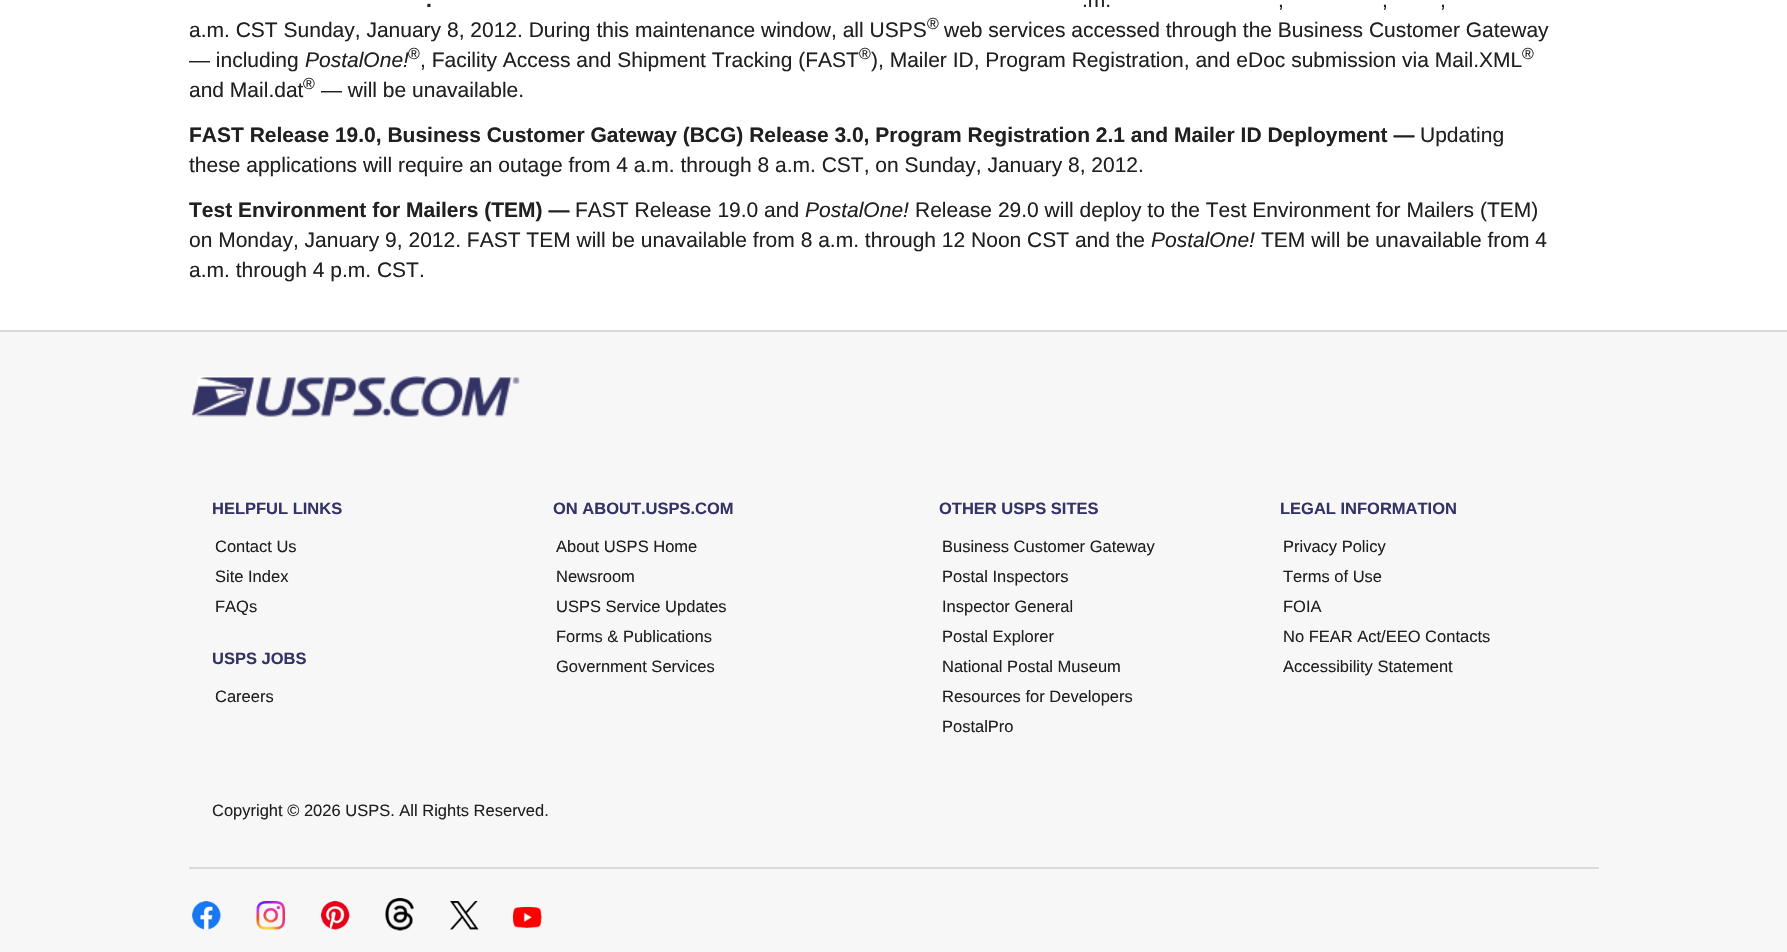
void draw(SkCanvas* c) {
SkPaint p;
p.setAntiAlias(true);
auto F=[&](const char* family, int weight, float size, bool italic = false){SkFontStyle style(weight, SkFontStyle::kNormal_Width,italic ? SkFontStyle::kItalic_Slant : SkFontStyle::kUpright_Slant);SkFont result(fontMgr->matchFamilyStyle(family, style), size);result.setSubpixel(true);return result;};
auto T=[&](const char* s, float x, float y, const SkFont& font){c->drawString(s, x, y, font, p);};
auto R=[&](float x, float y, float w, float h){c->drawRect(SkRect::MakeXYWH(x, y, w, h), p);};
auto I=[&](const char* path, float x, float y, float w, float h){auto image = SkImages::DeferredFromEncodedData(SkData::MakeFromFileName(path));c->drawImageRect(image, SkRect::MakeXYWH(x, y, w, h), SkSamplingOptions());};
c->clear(0xffffffff);
auto f1 = F("Liberation Sans",700,21);
p.setColor(0xff202020);
T(".",426,7,f1);
auto f2 = F("Liberation Sans",400,21);
T(".m.",1082,7,f2);
T(",",1278,7,f2);
T(",",1382,7,f2);
T(",",1440,7,f2);
T("a.m. CST Sunday, January 8, 2012. During this maintenance window, all USPS",189,37,f2);
auto f3 = F("Liberation Sans",400,16);
T("®",927,29,f3);
T("web services accessed through the Business Customer Gateway",944,37,f2);
T("— including",189,67,f2);
auto f4 = F("Liberation Sans",400,21,true);
T("PostalOne!",305,67,f4);
T("®",408,59,f3);
T(", Facility Access and Shipment Tracking (FAST",420,67,f2);
T("), Mailer ID, Program Registration, and eDoc submission via Mail.XML",871,67,f2);
T("®",859,59,f3);
T("®",1522,59,f3);
T("and Mail.dat",189,97,f2);
T("®",303,89,f3);
T("— will be unavailable.",321,97,f2);
T("FAST Release 19.0, Business Customer Gateway (BCG) Release 3.0, Program Registration 2.1 and Mailer ID Deployment —",189,142,f1);
T("Updating",1420,142,f2);
T("these applications will require an outage from 4 a.m. through 8 a.m. CST, on Sunday, January 8, 2012.",189,172,f2);
T("Test Environment for Mailers (TEM) —",189,217,f1);
T("FAST Release 19.0 and",575,217,f2);
T("PostalOne!",805,217,f4);
T("Release 29.0 will deploy to the Test Environment for Mailers (TEM)",915,217,f2);
T("on Monday, January 9, 2012. FAST TEM will be unavailable from 8 a.m. through 12 Noon CST and the",189,247,f2);
T("PostalOne!",1151,247,f4);
T("TEM will be unavailable from 4",1261,247,f2);
T("a.m. through 4 p.m. CST.",189,277,f2);
p.setColor(0xfff7f7f7);
R(0,332,1787,620);
p.setColor(0xffdadada);
R(0,330,1787,2);
I("1.png",191,376,329,41);
auto f5 = F("Liberation Sans",700,16.5);
p.setColor(0xff333366);
T("HELPFUL LINKS",212,514,f5);
auto f6 = F("Liberation Sans",400,16.5);
p.setColor(0xff202020);
T("Contact Us",215,552,f6);
T("Site Index",215,582,f6);
T("FAQs",215,612,f6);
p.setColor(0xff333366);
T("USPS JOBS",212,664,f5);
p.setColor(0xff202020);
T("Careers",215,702,f6);
p.setColor(0xff333366);
T("ON ABOUT.USPS.COM",553,514,f5);
p.setColor(0xff202020);
T("About USPS Home",556,552,f6);
T("Newsroom",556,582,f6);
T("USPS Service Updates",556,612,f6);
T("Forms & Publications",556,642,f6);
T("Government Services",556,672,f6);
p.setColor(0xff333366);
T("OTHER USPS SITES",939,514,f5);
p.setColor(0xff202020);
T("Business Customer Gateway",942,552,f6);
T("Postal Inspectors",942,582,f6);
T("Inspector General",942,612,f6);
T("Postal Explorer",942,642,f6);
T("National Postal Museum",942,672,f6);
T("Resources for Developers",942,702,f6);
T("PostalPro",942,732,f6);
p.setColor(0xff333366);
T("LEGAL INFORMATION",1280,514,f5);
p.setColor(0xff202020);
T("Privacy Policy",1283,552,f6);
T("Terms of Use",1283,582,f6);
T("FOIA",1283,612,f6);
T("No FEAR Act/EEO Contacts",1283,642,f6);
T("Accessibility Statement",1283,672,f6);
p.setColor(0xffdadada);
R(189,867,1410,2);
p.setColor(0xff202020);
T("Copyright © 2026 USPS. All Rights Reserved.",212,816,f6);
I("2.png",192,901,29,29);
I("3.png",256,901,29,29);
I("4.png",321,901,29,29);
I("5.png",385,898,29,33);
I("6.png",450,901,29,29);
I("7.png",513,907,29,21);
}
